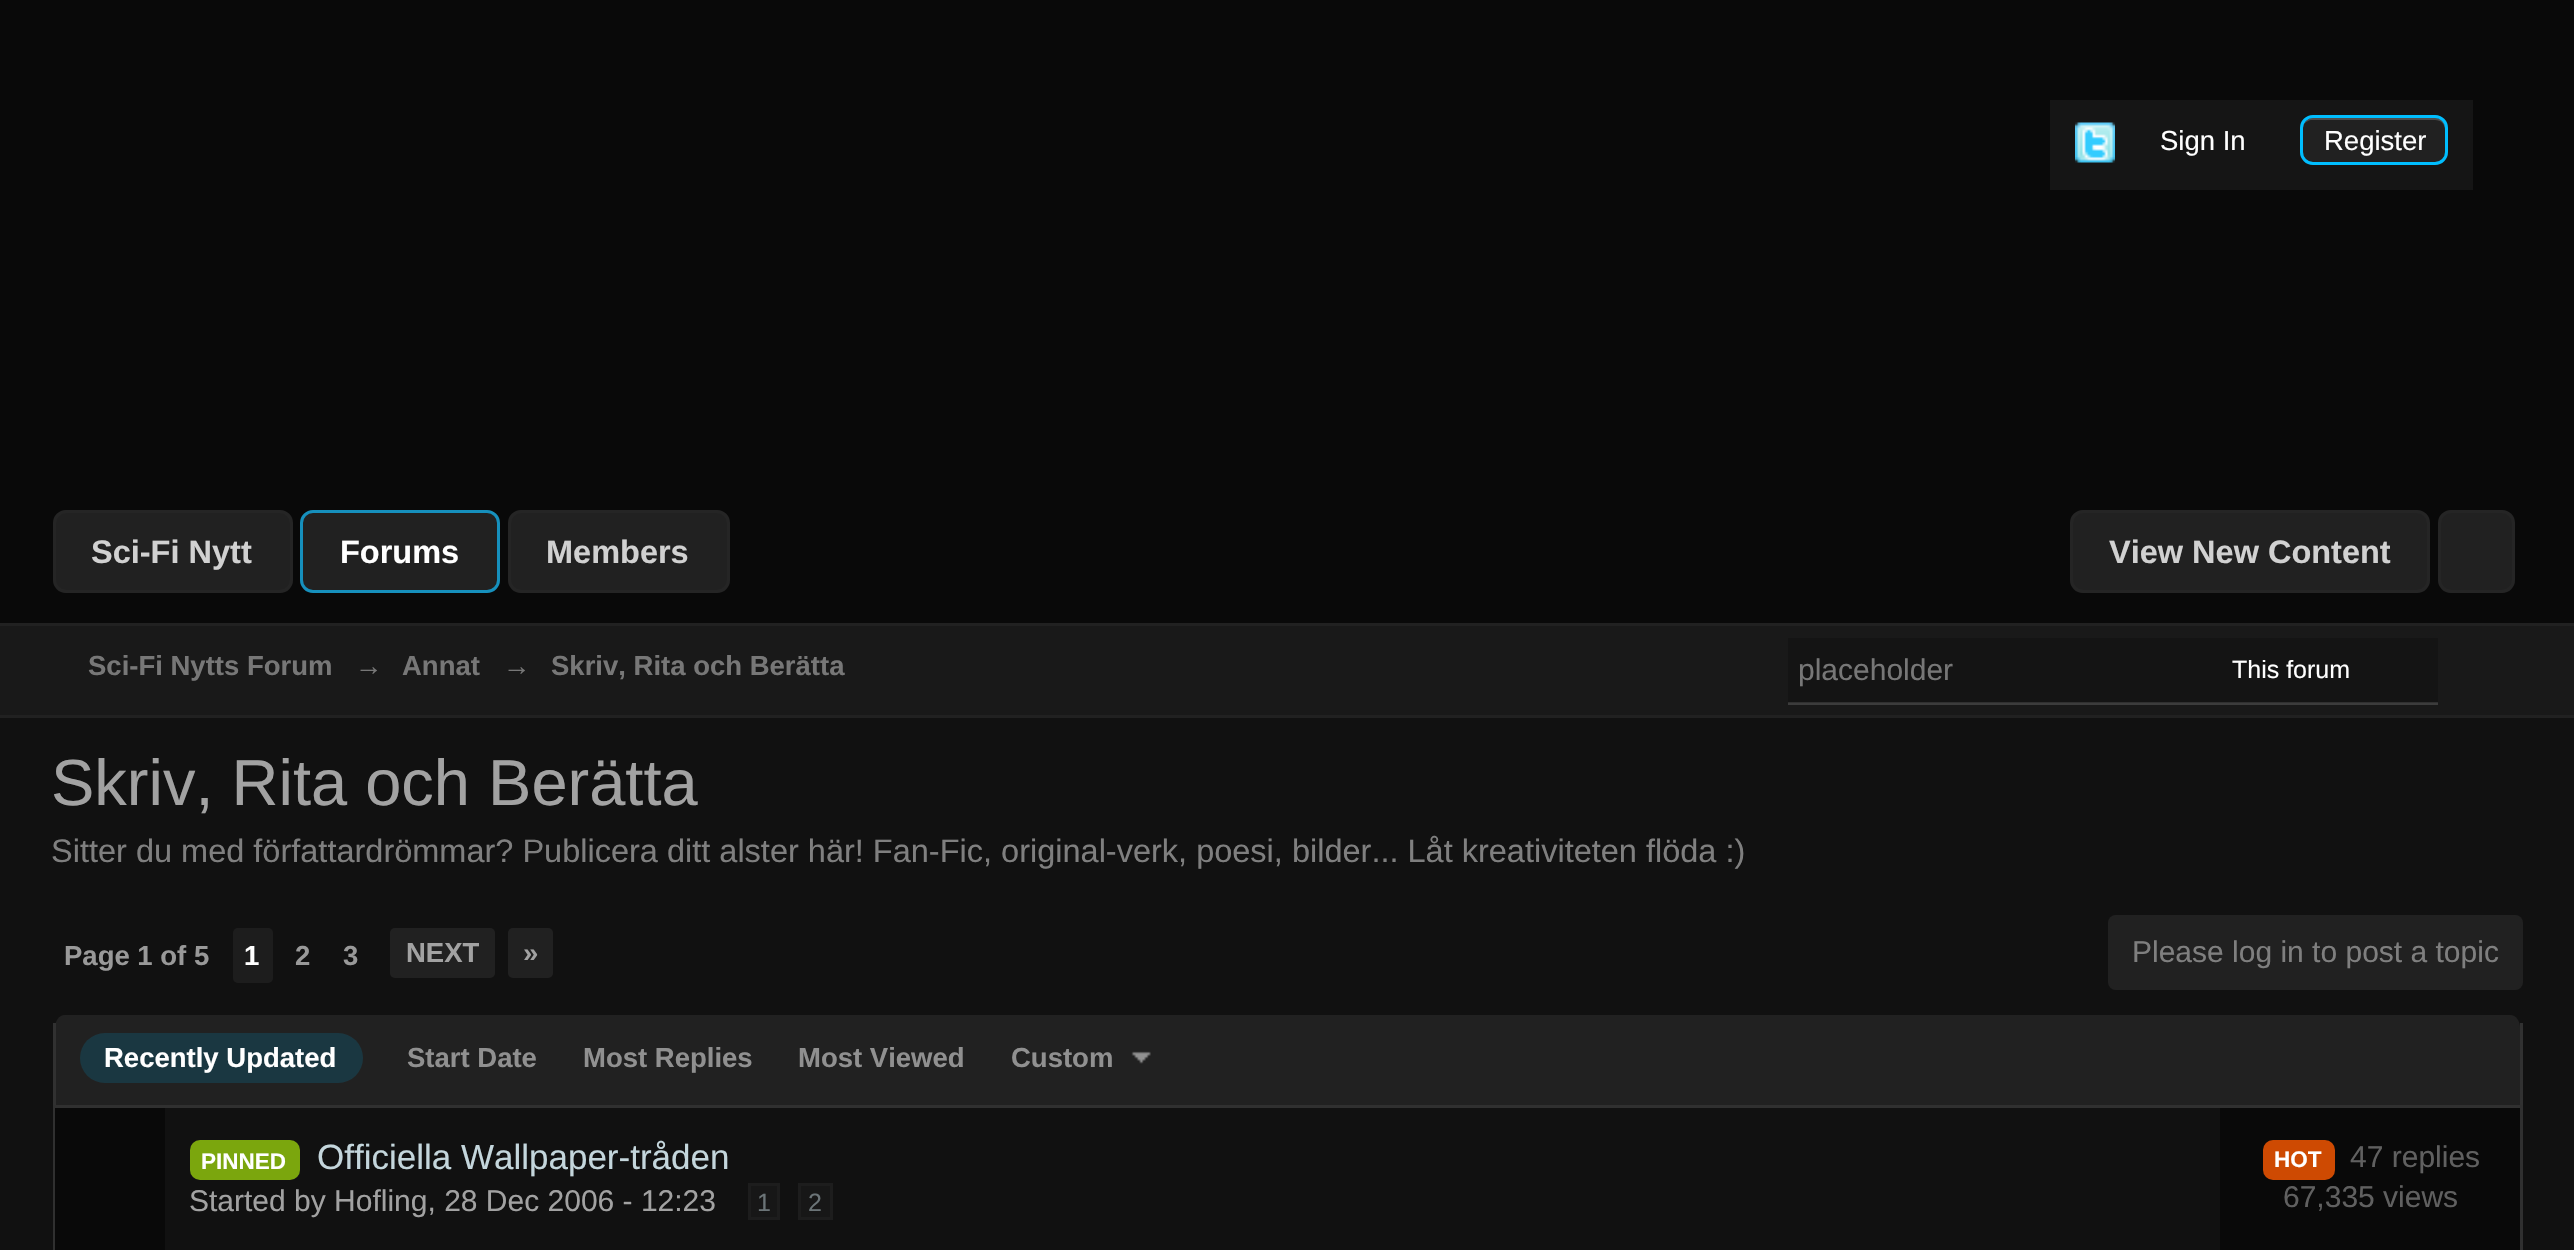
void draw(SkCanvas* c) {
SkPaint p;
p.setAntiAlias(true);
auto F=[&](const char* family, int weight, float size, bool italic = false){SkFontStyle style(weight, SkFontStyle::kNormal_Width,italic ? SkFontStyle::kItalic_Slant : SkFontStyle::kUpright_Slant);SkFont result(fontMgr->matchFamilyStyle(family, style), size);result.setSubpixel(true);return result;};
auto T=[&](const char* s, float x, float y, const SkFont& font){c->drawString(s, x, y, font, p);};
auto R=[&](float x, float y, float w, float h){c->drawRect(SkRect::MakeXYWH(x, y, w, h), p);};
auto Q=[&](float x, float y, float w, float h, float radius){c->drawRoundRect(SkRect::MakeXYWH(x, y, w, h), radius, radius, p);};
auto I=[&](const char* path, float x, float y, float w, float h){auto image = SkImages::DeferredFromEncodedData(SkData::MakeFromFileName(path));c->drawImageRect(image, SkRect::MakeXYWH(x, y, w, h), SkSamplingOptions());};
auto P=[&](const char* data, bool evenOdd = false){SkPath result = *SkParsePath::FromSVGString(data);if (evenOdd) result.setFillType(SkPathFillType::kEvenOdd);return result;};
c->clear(0xff090909);
p.setColor(0xff151515);
R(2050,100,423,90);
I("1.png",2075,122,40,41);
auto f1 = F("Liberation Sans",400,27.5);
p.setColor(0xffffffff);
T("Sign In",2160,150,f1);
p.setColor(0xff212121);
Q(2300,115,148,50,13);
p.setColor(0xff4d4d4d);
c->drawPath(P("M2312 120h123c6 0 10 4 10 10v-2c0-6-4-10-10-10h-122c-4 0-8 3-9 7c1-3 5-5 8-5z"),p);
p.setStroke(true);
p.setStrokeWidth(3);
p.setColor(0xff00beff);
c->drawRoundRect(SkRect::MakeXYWH(2301.5,116.5,145,47),11.5,11.5,p);
p.setStroke(false);
p.setColor(0xffffffff);
T("Register",2324,150,f1);
p.setColor(0xff212121);
c->drawRoundRect(SkRect::MakeXYWH(54.5,511.5,237,80),11.5,11.5,p);
p.setStroke(true);
p.setColor(0xff252525);
c->drawRoundRect(SkRect::MakeXYWH(54.5,511.5,237,80),11.5,11.5,p);
auto f2 = F("Liberation Sans",700,32.5);
p.setStroke(false);
p.setColor(0xffd1d1d1);
T("Sci-Fi Nytt",91,563,f2);
p.setColor(0xff212121);
c->drawRoundRect(SkRect::MakeXYWH(301.5,511.5,197,80),11.5,11.5,p);
p.setStroke(true);
p.setColor(0xff1690bd);
c->drawRoundRect(SkRect::MakeXYWH(301.5,511.5,197,80),11.5,11.5,p);
p.setStroke(false);
p.setColor(0xffffffff);
T("Forums",340,563,f2);
p.setColor(0xff212121);
c->drawRoundRect(SkRect::MakeXYWH(509.5,511.5,219,80),11.5,11.5,p);
p.setStroke(true);
p.setColor(0xff252525);
c->drawRoundRect(SkRect::MakeXYWH(509.5,511.5,219,80),11.5,11.5,p);
p.setStroke(false);
p.setColor(0xffd1d1d1);
T("Members",546,563,f2);
p.setColor(0xff212121);
c->drawRoundRect(SkRect::MakeXYWH(2071.5,511.5,357,80),11.5,11.5,p);
p.setStroke(true);
p.setColor(0xff252525);
c->drawRoundRect(SkRect::MakeXYWH(2071.5,511.5,357,80),11.5,11.5,p);
p.setStroke(false);
p.setColor(0xffd1d1d1);
T("View New Content",2109,563,f2);
p.setColor(0xff212121);
c->drawRoundRect(SkRect::MakeXYWH(2439.5,511.5,74,80),11.5,11.5,p);
p.setStroke(true);
p.setColor(0xff252525);
c->drawRoundRect(SkRect::MakeXYWH(2439.5,511.5,74,80),11.5,11.5,p);
p.setStroke(false);
p.setColor(0xff191919);
R(0,626,2574,89);
p.setColor(0xff212121);
R(0,623,2574,3);
R(0,715,2574,3);
auto f3 = F("Liberation Sans",700,27.5);
p.setColor(0xff777777);
T("Sci-Fi Nytts Forum",88,675,f3);
T("→",355,675,f3);
T("Annat",402,675,f3);
T("→",503,675,f3);
T("Skriv, Rita och Berätta",551,675,f3);
p.setColor(0xff3c3c3c);
c->drawPath(P("M1788 702v3h650v-65v62z"),p);
p.setColor(0x33000000);
R(1788,638,650,65);
auto f4 = F("Liberation Sans",400,30);
p.setColor(0xff777777);
T("placeholder",1798,680,f4);
auto f5 = F("Liberation Sans",400,25);
p.setColor(0xffffffff);
T("This forum",2232,678,f5);
p.setColor(0xff111111);
R(0,718,2574,532);
auto f6 = F("Liberation Sans",400,65);
p.setColor(0xffa2a2a2);
T("Skriv, Rita och Berätta",51,805,f6);
auto f7 = F("Liberation Sans",400,32.5);
p.setColor(0xff7f7f7f);
T("Sitter du med författardrömmar? Publicera ditt alster här! Fan-Fic, original-verk, poesi, bilder... Låt kreativiteten flöda :)",51,862,f7);
p.setColor(0xff999999);
T("Page 1 of 5",64,965,f3);
p.setColor(0xff1d1d1d);
Q(233,928,40,55,5);
p.setColor(0xffffffff);
T("1",244,965,f3);
p.setColor(0xff999999);
T("2",295,965,f3);
T("3",343,965,f3);
p.setColor(0xff212121);
Q(390,928,105,50,5);
p.setColor(0xffa2a2a2);
T("NEXT",406,962,f3);
p.setColor(0xff212121);
Q(508,928,45,50,5);
p.setColor(0xffa2a2a2);
T("»",523,962,f3);
p.setColor(0xff212121);
Q(2108,915,415,75,8);
p.setColor(0xff7f7f7f);
T("Please log in to post a topic",2132,962,f4);
p.setColor(0xff212121);
c->drawPath(P("M65 1015h2445c6 0 10 6 10 13v77h-2465v-77c0-7 4-13 10-13z"),p);
p.setColor(0xff313131);
R(2520,1023,3,82);
R(53,1023,3,82);
p.setColor(0xff1a3741);
Q(80,1033,283,50,25);
p.setColor(0xffffffff);
T("Recently Updated",104,1067,f3);
p.setColor(0xff909090);
T("Start Date",407,1067,f3);
T("Most Replies",583,1067,f3);
T("Most Viewed",798,1067,f3);
T("Custom",1011,1067,f3);
I("2.png",1131,1051,20,13);
p.setStroke(true);
p.setColor(0xff303030);
c->drawRect(SkRect::MakeXYWH(54.5,1106.5,2467,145),p);
p.setStroke(false);
p.setColor(0xff090909);
R(55,1108,110,142);
p.setColor(0xff7ba60d);
Q(190,1140,110,40,10);
auto f8 = F("Liberation Sans",700,22.5);
p.setColor(0xffffffff);
T("PINNED",201,1169,f8);
auto f9 = F("Liberation Sans",400,35);
p.setColor(0xffc4d6dc);
T("Officiella Wallpaper-tråden",317,1169,f9);
p.setColor(0xffa2a2a2);
T("Started by Hofling, 28 Dec 2006 - 12:23",189,1211,f4);
p.setColor(0xff171717);
c->drawRect(SkRect::MakeXYWH(749.5,1184.5,29,34),p);
p.setStroke(true);
p.setColor(0xff1d1d1d);
c->drawRect(SkRect::MakeXYWH(749.5,1184.5,29,34),p);
p.setStroke(false);
p.setColor(0xff6b7477);
T("1",757,1211,f5);
p.setColor(0xff171717);
c->drawRect(SkRect::MakeXYWH(799.5,1184.5,32,34),p);
p.setStroke(true);
p.setColor(0xff1d1d1d);
c->drawRect(SkRect::MakeXYWH(799.5,1184.5,32,34),p);
p.setStroke(false);
p.setColor(0xff6b7477);
T("2",808,1211,f5);
p.setColor(0xff090909);
R(2220,1108,300,142);
p.setColor(0xffce4a02);
Q(2263,1140,72,40,10);
p.setColor(0xffffffff);
T("HOT",2274,1167,f8);
p.setColor(0xff606060);
T("47 replies",2350,1167,f4);
T("67,335 views",2283,1207,f4);
}
